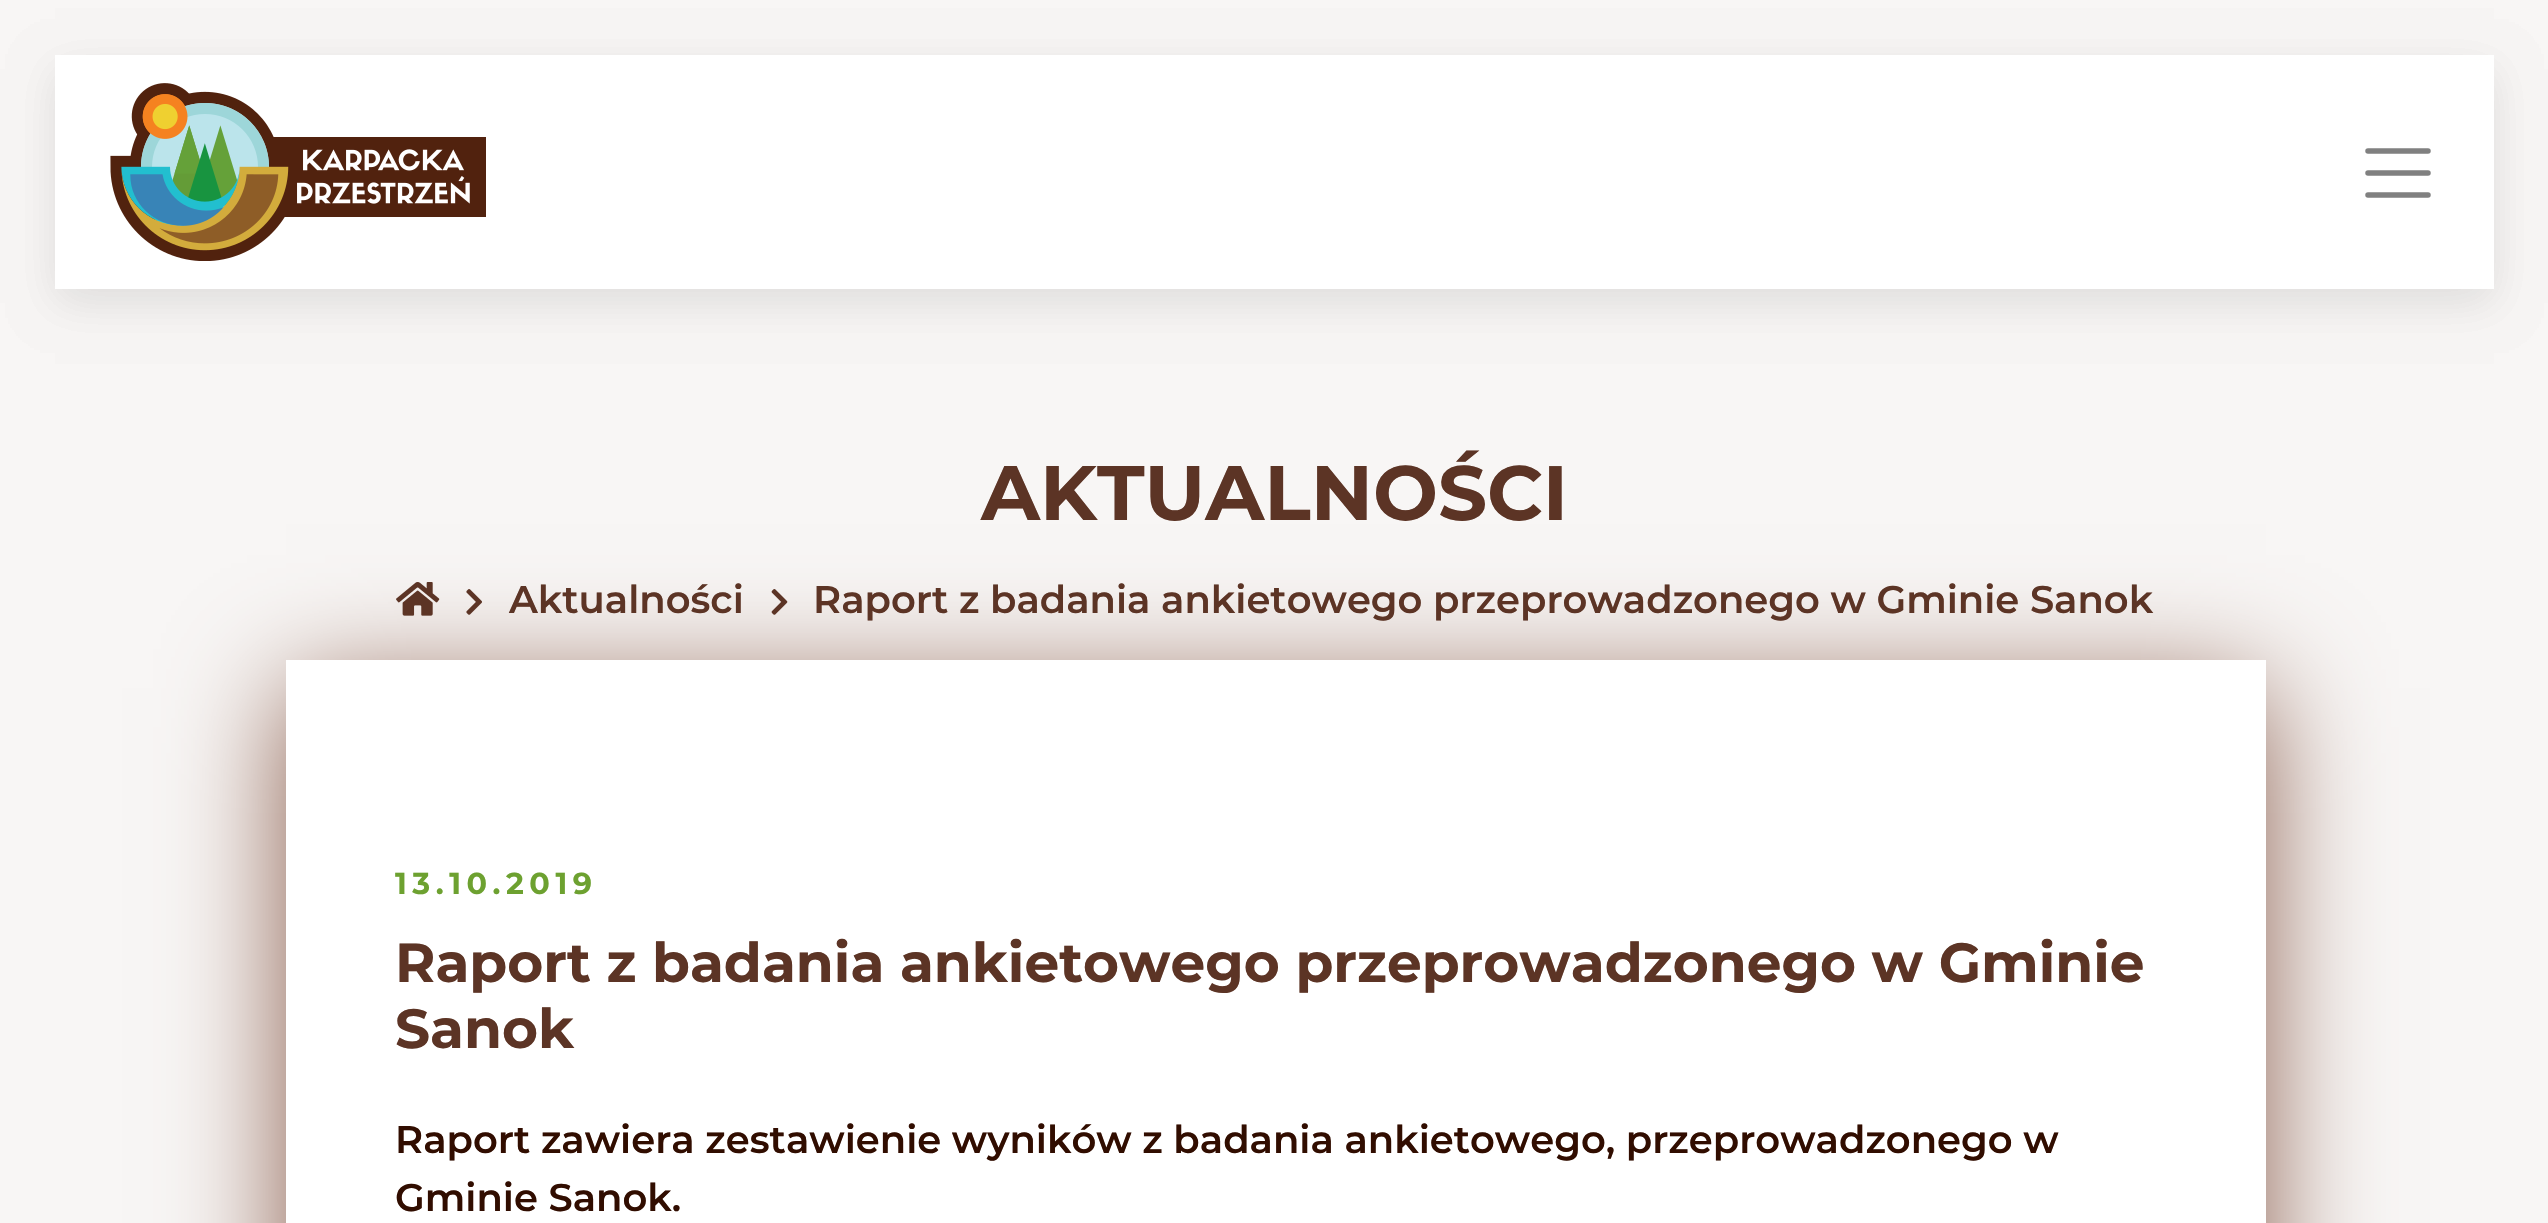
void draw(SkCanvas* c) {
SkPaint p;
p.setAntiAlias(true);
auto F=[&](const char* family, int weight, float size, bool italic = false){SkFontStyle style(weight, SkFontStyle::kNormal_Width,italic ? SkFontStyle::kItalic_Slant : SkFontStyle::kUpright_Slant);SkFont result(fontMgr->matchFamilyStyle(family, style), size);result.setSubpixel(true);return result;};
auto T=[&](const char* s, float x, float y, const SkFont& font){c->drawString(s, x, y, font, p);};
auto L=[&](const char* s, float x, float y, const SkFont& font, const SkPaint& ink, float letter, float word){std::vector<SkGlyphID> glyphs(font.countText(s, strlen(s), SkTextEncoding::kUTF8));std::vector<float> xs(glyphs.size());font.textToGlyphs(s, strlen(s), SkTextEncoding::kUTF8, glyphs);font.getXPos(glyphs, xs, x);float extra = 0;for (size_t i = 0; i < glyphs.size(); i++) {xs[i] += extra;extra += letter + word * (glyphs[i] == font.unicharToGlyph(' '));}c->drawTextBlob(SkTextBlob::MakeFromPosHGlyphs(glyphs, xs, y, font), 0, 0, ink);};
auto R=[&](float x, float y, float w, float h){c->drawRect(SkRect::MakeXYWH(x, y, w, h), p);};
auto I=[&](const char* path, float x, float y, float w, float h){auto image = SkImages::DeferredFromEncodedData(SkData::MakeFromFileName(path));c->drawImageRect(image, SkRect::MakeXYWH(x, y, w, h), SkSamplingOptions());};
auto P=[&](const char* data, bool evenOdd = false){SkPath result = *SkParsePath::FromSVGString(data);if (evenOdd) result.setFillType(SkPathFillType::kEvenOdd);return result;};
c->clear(0xfff8f6f5);
p.setColor(0x0d000000);
p.setMaskFilter(SkMaskFilter::MakeBlur(kNormal_SkBlurStyle, 20.5));
c->drawRect(SkRect::MakeXYWH(55,69,2439,234),p);
p.setMaskFilter(nullptr);
p.setMaskFilter(SkMaskFilter::MakeBlur(kNormal_SkBlurStyle, 20.5));
c->drawRect(SkRect::MakeXYWH(55,69,2439,234),p);
p.setMaskFilter(nullptr);
p.setColor(0xffffffff);
R(55,55,2439,234);
I("1.png",110,83,376,178);
p.setStroke(true);
p.setStrokeWidth(5.5);
p.setStrokeCap(SkPaint::kRound_Cap);
p.setColor(0xff808080);
c->drawPath(P("M2368 151h60m-60 22h60m-60 22h60"),p);
auto f1 = F("Montserrat",700,77);
p.setStroke(false);
p.setColor(0xff5c3425);
T("AKTUALNOŚCI",981,520,f1);
p.setColor(0xff8b5e4d);
p.setMaskFilter(SkMaskFilter::MakeBlur(kNormal_SkBlurStyle, 55));
c->drawRect(SkRect::MakeXYWH(286,688,1980,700),p);
p.setMaskFilter(nullptr);
I("2.png",396,582,44,34);
I("3.png",466,589,16,26);
auto f2 = F("Montserrat",600,38.5);
p.setColor(0xff5c3425);
T("Aktualności",509,613,f2);
I("4.png",771,589,17,26);
T("Raport z badania ankietowego przeprowadzonego w Gminie Sanok",813,613,f2);
p.setColor(0xffffffff);
R(286,660,1980,563);
auto f3 = F("Montserrat",700,30.25);
p.setColor(0xff6da130);
L("13.10.2019",395,894,f3,p,5.5,0);
auto f4 = F("Montserrat",700,55);
p.setColor(0xff5c3425);
T("Raport z badania ankietowego przeprowadzonego w Gminie",395,982,f4);
T("Sanok",395,1048,f4);
p.setColor(0xff310d00);
T("Raport zawiera zestawienie wyników z badania ankietowego, przeprowadzonego w",395,1153,f2);
T("Gminie Sanok.",395,1211,f2);
}
